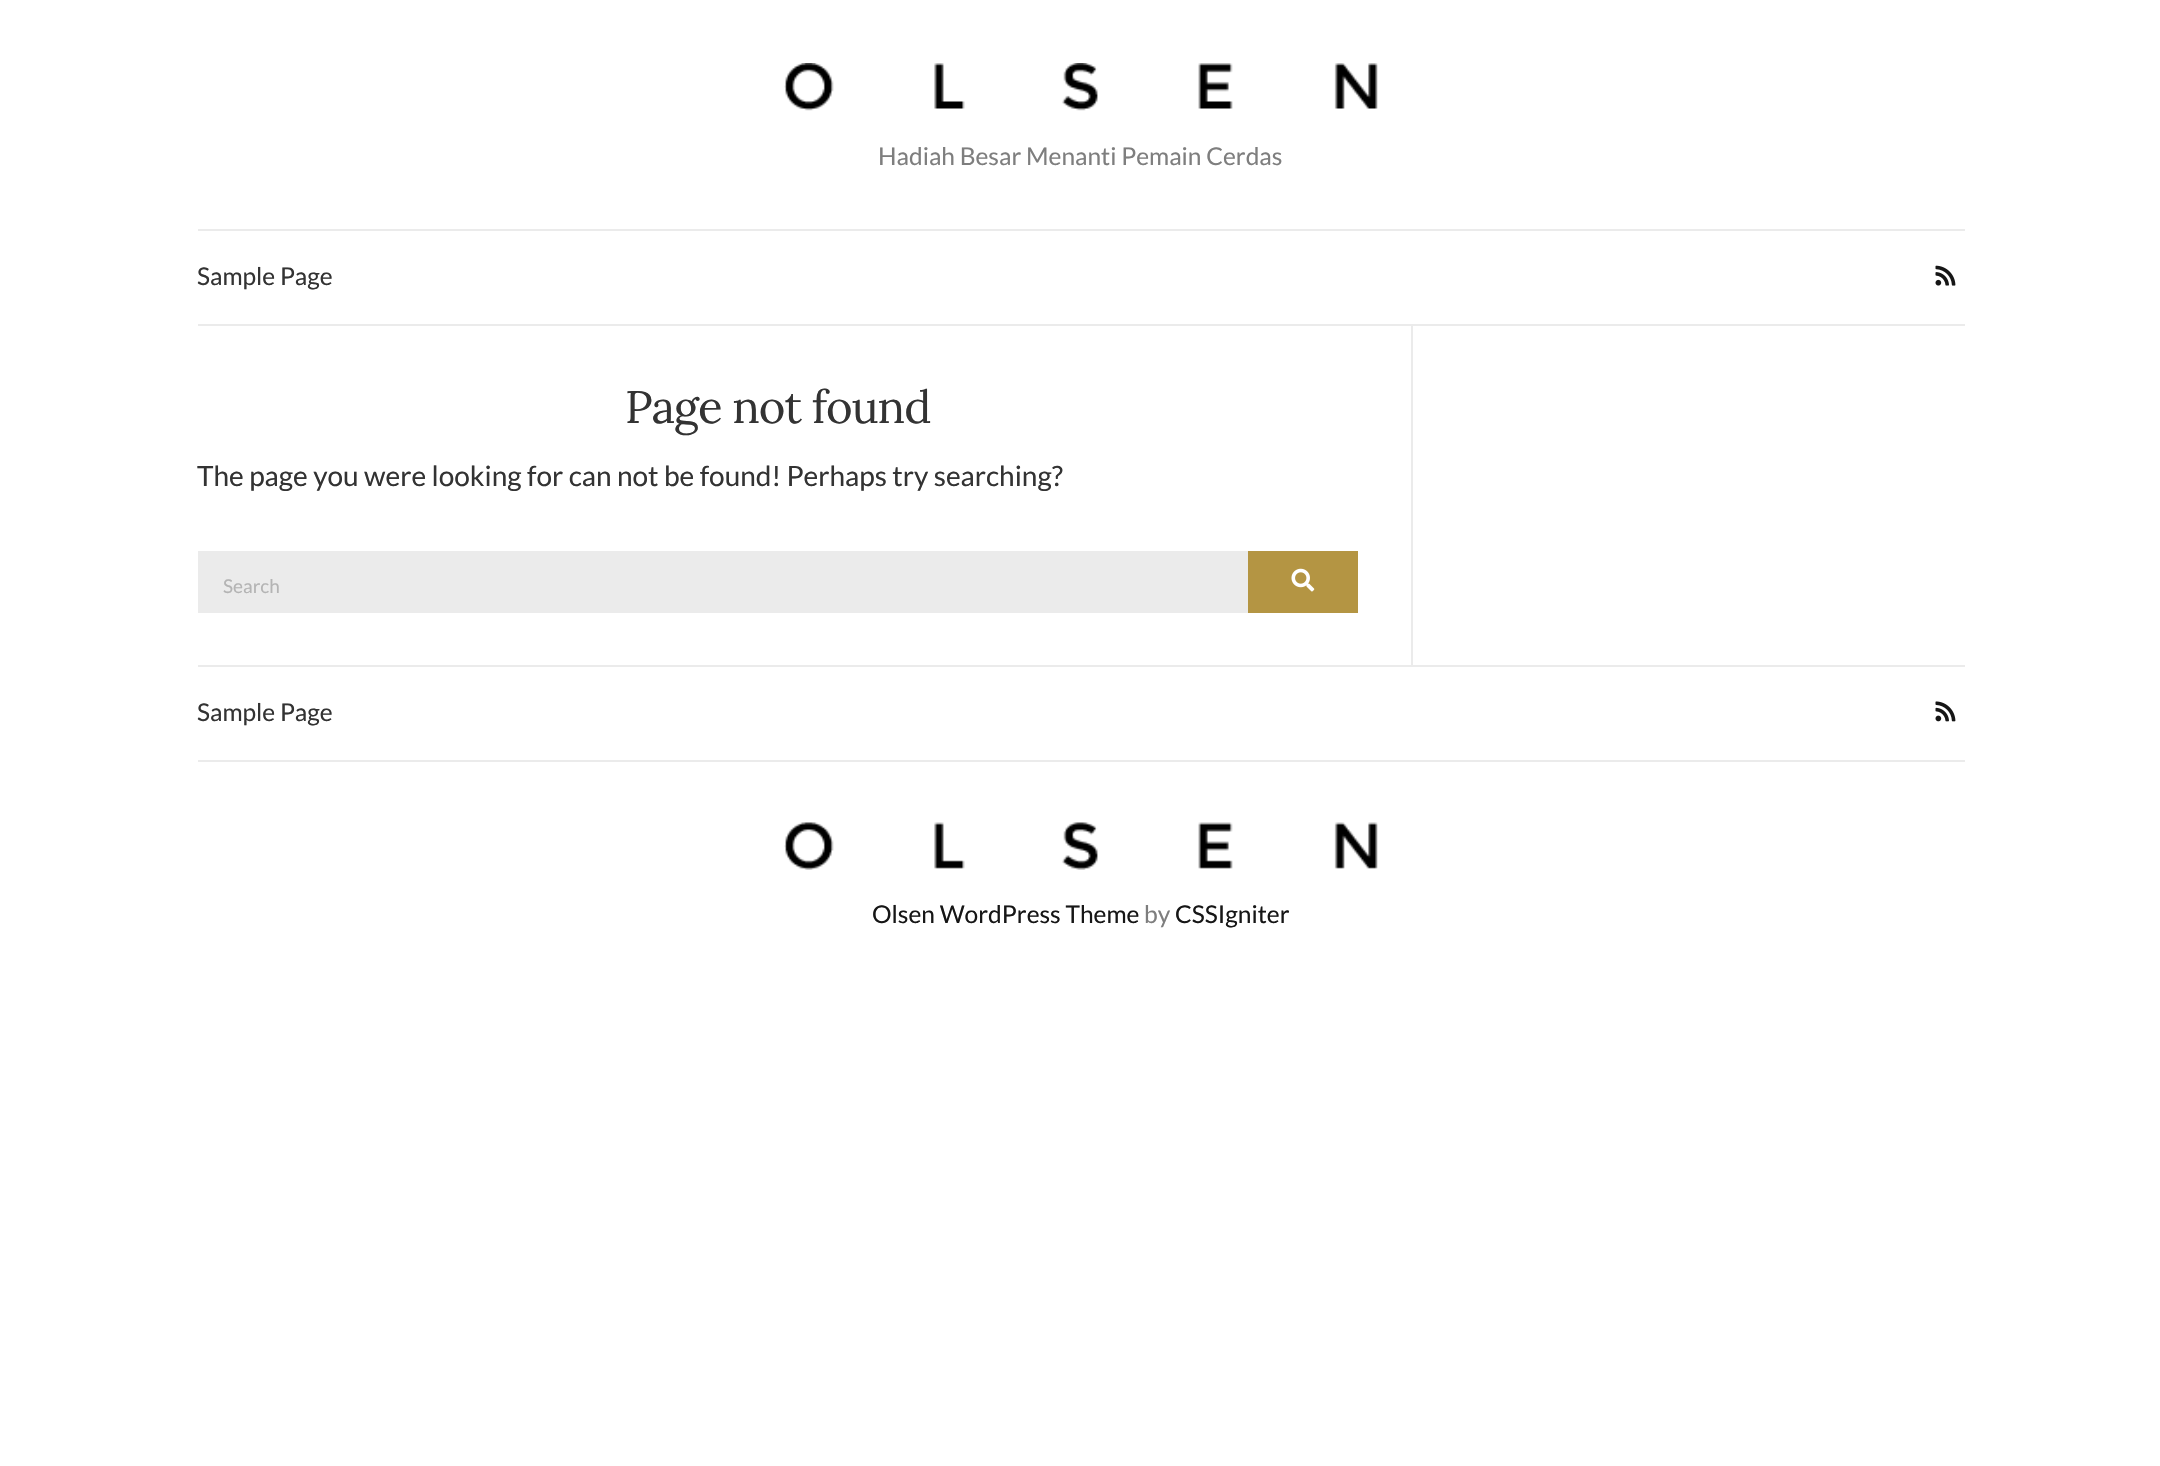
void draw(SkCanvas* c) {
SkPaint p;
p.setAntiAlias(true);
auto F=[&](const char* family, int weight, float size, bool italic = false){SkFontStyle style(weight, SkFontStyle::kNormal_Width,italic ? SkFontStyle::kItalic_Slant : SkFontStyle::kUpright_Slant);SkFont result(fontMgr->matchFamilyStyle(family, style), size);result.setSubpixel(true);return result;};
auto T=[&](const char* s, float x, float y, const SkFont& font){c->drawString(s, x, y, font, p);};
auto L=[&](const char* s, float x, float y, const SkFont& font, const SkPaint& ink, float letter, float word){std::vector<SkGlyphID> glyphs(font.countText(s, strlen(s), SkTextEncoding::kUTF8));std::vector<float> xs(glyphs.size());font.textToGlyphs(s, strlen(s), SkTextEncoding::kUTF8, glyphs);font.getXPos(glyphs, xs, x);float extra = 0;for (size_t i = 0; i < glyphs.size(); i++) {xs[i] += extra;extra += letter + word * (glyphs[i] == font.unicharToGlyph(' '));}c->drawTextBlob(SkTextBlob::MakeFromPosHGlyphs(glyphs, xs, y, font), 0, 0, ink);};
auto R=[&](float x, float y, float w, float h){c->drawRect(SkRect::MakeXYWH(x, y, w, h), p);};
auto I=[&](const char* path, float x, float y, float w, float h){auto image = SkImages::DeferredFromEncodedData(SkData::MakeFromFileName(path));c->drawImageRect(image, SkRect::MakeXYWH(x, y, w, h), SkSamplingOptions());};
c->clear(0xffffffff);
I("1.png",784,63,594,48);
auto f1 = F("Lato",400,24.5);
p.setColor(0xff7e7e7e);
T("Hadiah Besar Menanti Pemain Cerdas",878,165,f1);
p.setColor(0xffebebeb);
R(198,229,1767,2);
R(198,324,1767,2);
p.setColor(0xff333333);
T("Sample Page",197,285,f1);
I("2.png",1935,265,21,21);
auto f2 = F("Lora",400,45.5);
L("Page not found",625,423,f2,p,-1.1,0);
auto f3 = F("Lato",400,28);
T("The page you were looking for can not be found! Perhaps try searching?",197,486,f3);
p.setColor(0xffebebeb);
R(198,551,1050,62);
auto f4 = F("Lato",400,19);
p.setColor(0xffb4b4b4);
T("Search",223,593,f4);
p.setColor(0xffb49543);
R(1248,551,110,62);
I("3.png",1291,568,24,24);
p.setColor(0xffebebeb);
R(1411,326,2,339);
R(198,665,1767,2);
R(198,760,1767,2);
p.setColor(0xff333333);
T("Sample Page",197,721,f1);
I("4.png",1935,701,21,21);
I("5.png",784,822,594,48);
p.setColor(0xff161616);
T("Olsen WordPress Theme",872,923,f1);
p.setColor(0xff7e7e7e);
T("by",1144,923,f1);
p.setColor(0xff161616);
T("CSSIgniter",1175,923,f1);
}
